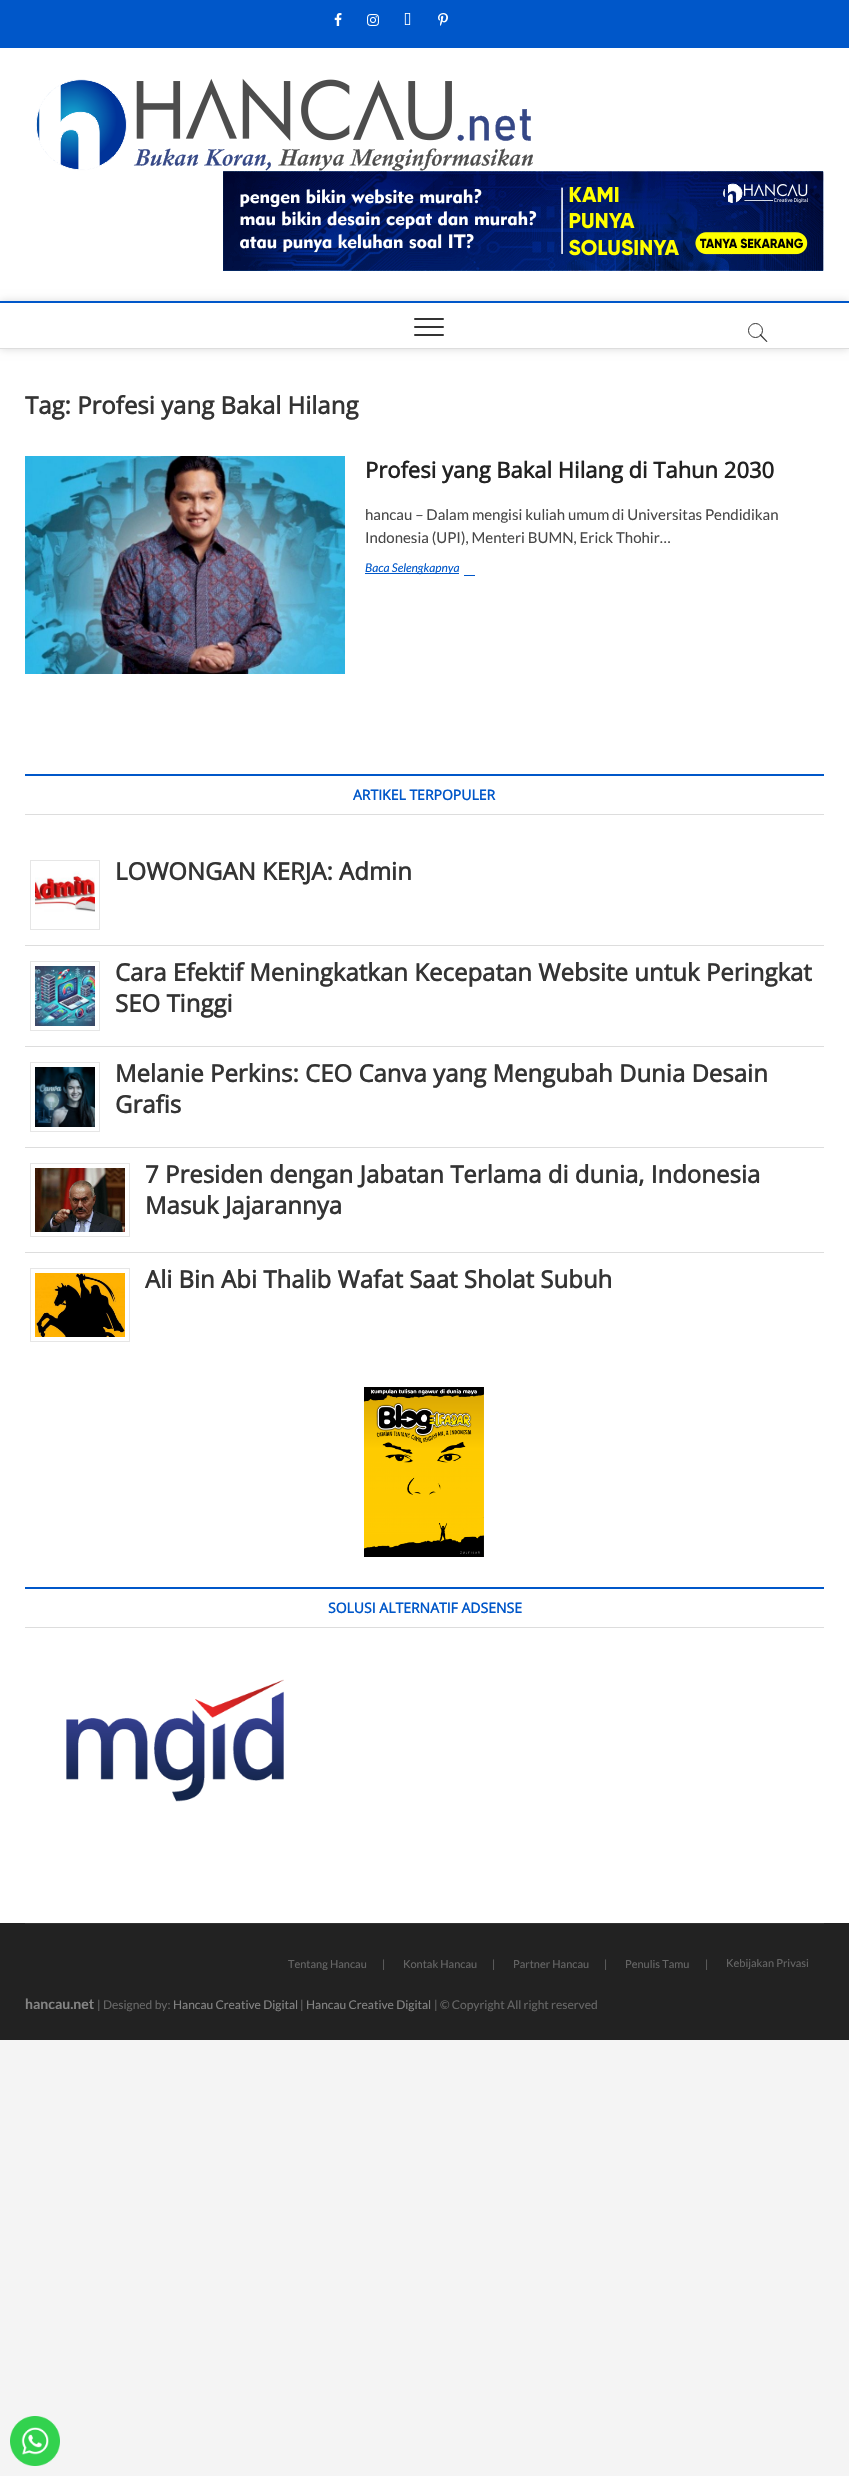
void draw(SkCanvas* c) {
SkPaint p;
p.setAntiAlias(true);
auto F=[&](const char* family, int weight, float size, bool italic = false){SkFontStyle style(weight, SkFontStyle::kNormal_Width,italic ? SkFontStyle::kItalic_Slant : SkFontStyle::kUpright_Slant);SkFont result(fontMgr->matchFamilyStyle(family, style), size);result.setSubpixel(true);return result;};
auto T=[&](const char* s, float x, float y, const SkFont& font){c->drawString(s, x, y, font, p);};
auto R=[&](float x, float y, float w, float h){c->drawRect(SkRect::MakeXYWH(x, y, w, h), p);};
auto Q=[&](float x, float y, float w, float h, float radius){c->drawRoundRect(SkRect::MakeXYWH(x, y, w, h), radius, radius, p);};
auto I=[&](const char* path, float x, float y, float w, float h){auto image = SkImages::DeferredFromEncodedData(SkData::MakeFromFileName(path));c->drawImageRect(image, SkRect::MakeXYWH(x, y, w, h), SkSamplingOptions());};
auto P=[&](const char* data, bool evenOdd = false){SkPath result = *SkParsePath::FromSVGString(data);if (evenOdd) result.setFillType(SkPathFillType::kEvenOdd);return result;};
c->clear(0xfff4f4f4);
p.setColor(0xffffffff);
R(0,48,849,1875);
p.setColor(0xff0057c9);
R(0,0,849,48);
I("1.png",334,13,8,13);
I("2.png",367,14,12,12);
I("3.png",404,13,7,12);
I("4.png",438,13,10,13);
I("5.png",36,78,497,93);
I("6.png",223,171,601,100);
c->save();
c->clipPath(P("M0 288h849v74h-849zm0 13h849v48h-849z",true),true);
p.setColor(0x26000000);
p.setMaskFilter(SkMaskFilter::MakeBlur(kNormal_SkBlurStyle, 4));
c->drawRect(SkRect::MakeXYWH(0,301,849,48),p);
p.setMaskFilter(nullptr);
c->restore();
p.setColor(0xff0057c9);
R(0,301,849,2);
p.setColor(0xffdddddd);
R(0,348,849,1);
p.setColor(0xff333333);
Q(414,326,30,2,1);
Q(414,318,30,2,1);
Q(414,334,30,2,1);
p.setStroke(true);
p.setStrokeWidth(1);
c->drawCircle(755.5,330.5,7,p);
p.setStroke(false);
c->drawPath(P("M759.5 335l1-1l7 7.5l-1 .5z"),p);
auto f1 = F("Open Sans",700,24);
p.setColor(0xff343434);
T("Tag: Profesi yang Bakal Hilang",25,414,f1);
I("7.png",25,456,320,218);
auto f2 = F("Open Sans",700,22);
p.setColor(0xff222222);
T("Profesi yang Bakal Hilang di Tahun 2030",365,478,f2);
auto f3 = F("Lato",400,15);
p.setColor(0xff484848);
T("hancau – Dalam mengisi kuliah umum di Universitas Pendidikan",365,520,f3);
T("Indonesia (UPI), Menteri BUMN, Erick Thohir…",365,543,f3);
p.setColor(0xff0057c9);
R(365,573,94,1);
auto f4 = F("Lato",400,12,true);
T("Baca Selengkapnya",365,572,f4);
R(464,575,11,1);
R(25,774,799,2);
p.setColor(0xffdddddd);
R(25,814,799,1);
auto f5 = F("Open Sans",700,14);
p.setColor(0xff0057c9);
T("ARTIKEL TERPOPULER",353,800,f5);
p.setColor(0xffdddddd);
R(25,945,799,1);
p.setStroke(true);
p.setColor(0xffe6e6e6);
c->drawRect(SkRect::MakeXYWH(30.5,860.5,69,69),p);
I("8.png",35,871,60,41);
p.setStroke(false);
p.setColor(0xff343434);
T("LOWONGAN KERJA: Admin",115,880,f1);
p.setColor(0xffdddddd);
R(25,1046,799,1);
p.setStroke(true);
p.setColor(0xffe6e6e6);
c->drawRect(SkRect::MakeXYWH(30.5,961.5,69,69),p);
I("9.png",35,966,60,60);
p.setStroke(false);
p.setColor(0xff343434);
T("Cara Efektif Meningkatkan Kecepatan Website untuk Peringkat",115,981,f1);
T("SEO Tinggi",115,1012,f1);
p.setColor(0xffdddddd);
R(25,1147,799,1);
p.setStroke(true);
p.setColor(0xffe6e6e6);
c->drawRect(SkRect::MakeXYWH(30.5,1062.5,69,69),p);
I("10.png",35,1067,60,60);
p.setStroke(false);
p.setColor(0xff343434);
T("Melanie Perkins: CEO Canva yang Mengubah Dunia Desain",115,1082,f1);
T("Grafis",115,1113,f1);
p.setColor(0xffdddddd);
R(25,1252,799,1);
p.setStroke(true);
p.setColor(0xffe6e6e6);
c->drawRect(SkRect::MakeXYWH(30.5,1163.5,99,73),p);
I("11.png",35,1168,90,64);
p.setStroke(false);
p.setColor(0xff343434);
T("7 Presiden dengan Jabatan Terlama di dunia, Indonesia",145,1183,f1);
T("Masuk Jajarannya",145,1214,f1);
p.setStroke(true);
p.setColor(0xffe6e6e6);
c->drawRect(SkRect::MakeXYWH(30.5,1268.5,99,73),p);
I("12.png",35,1273,90,64);
p.setStroke(false);
p.setColor(0xff343434);
T("Ali Bin Abi Thalib Wafat Saat Sholat Subuh",145,1288,f1);
I("13.png",364,1387,120,170);
p.setColor(0xff0057c9);
R(25,1587,799,2);
p.setColor(0xffdddddd);
R(25,1627,799,1);
p.setColor(0xff0057c9);
T("SOLUSI ALTERNATIF ADSENSE",328,1613,f5);
I("14.png",66,1679,218,123);
p.setColor(0xff222222);
R(0,1923,849,117);
p.setColor(0xff333333);
R(25,1923,799,1);
auto f6 = F("Lato",400,11);
p.setColor(0xff666666);
T("Tentang Hancau",288,1968,f6);
T("|",382,1968,f6);
T("Kontak Hancau",403,1968,f6);
T("|",492,1968,f6);
T("Partner Hancau",513,1968,f6);
T("|",604,1968,f6);
T("Penulis Tamu",625,1968,f6);
T("|",705,1968,f6);
T("Kebijakan Privasi",726,1967,f6);
auto f7 = F("Lato",700,14);
p.setColor(0xff848484);
T("hancau.net",25,2009,f7);
auto f8 = F("Lato",400,12);
p.setColor(0xff666666);
T("| Designed by:",97,2009,f8);
p.setColor(0xff848484);
T("Hancau Creative Digital",173,2009,f8);
p.setColor(0xff666666);
T("|",300,2009,f8);
p.setColor(0xff848484);
T("Hancau Creative Digital",306,2009,f8);
p.setColor(0xff666666);
T("| © Copyright All right reserved",434,2009,f8);
I("15.png",10,2416,50,50);
}
